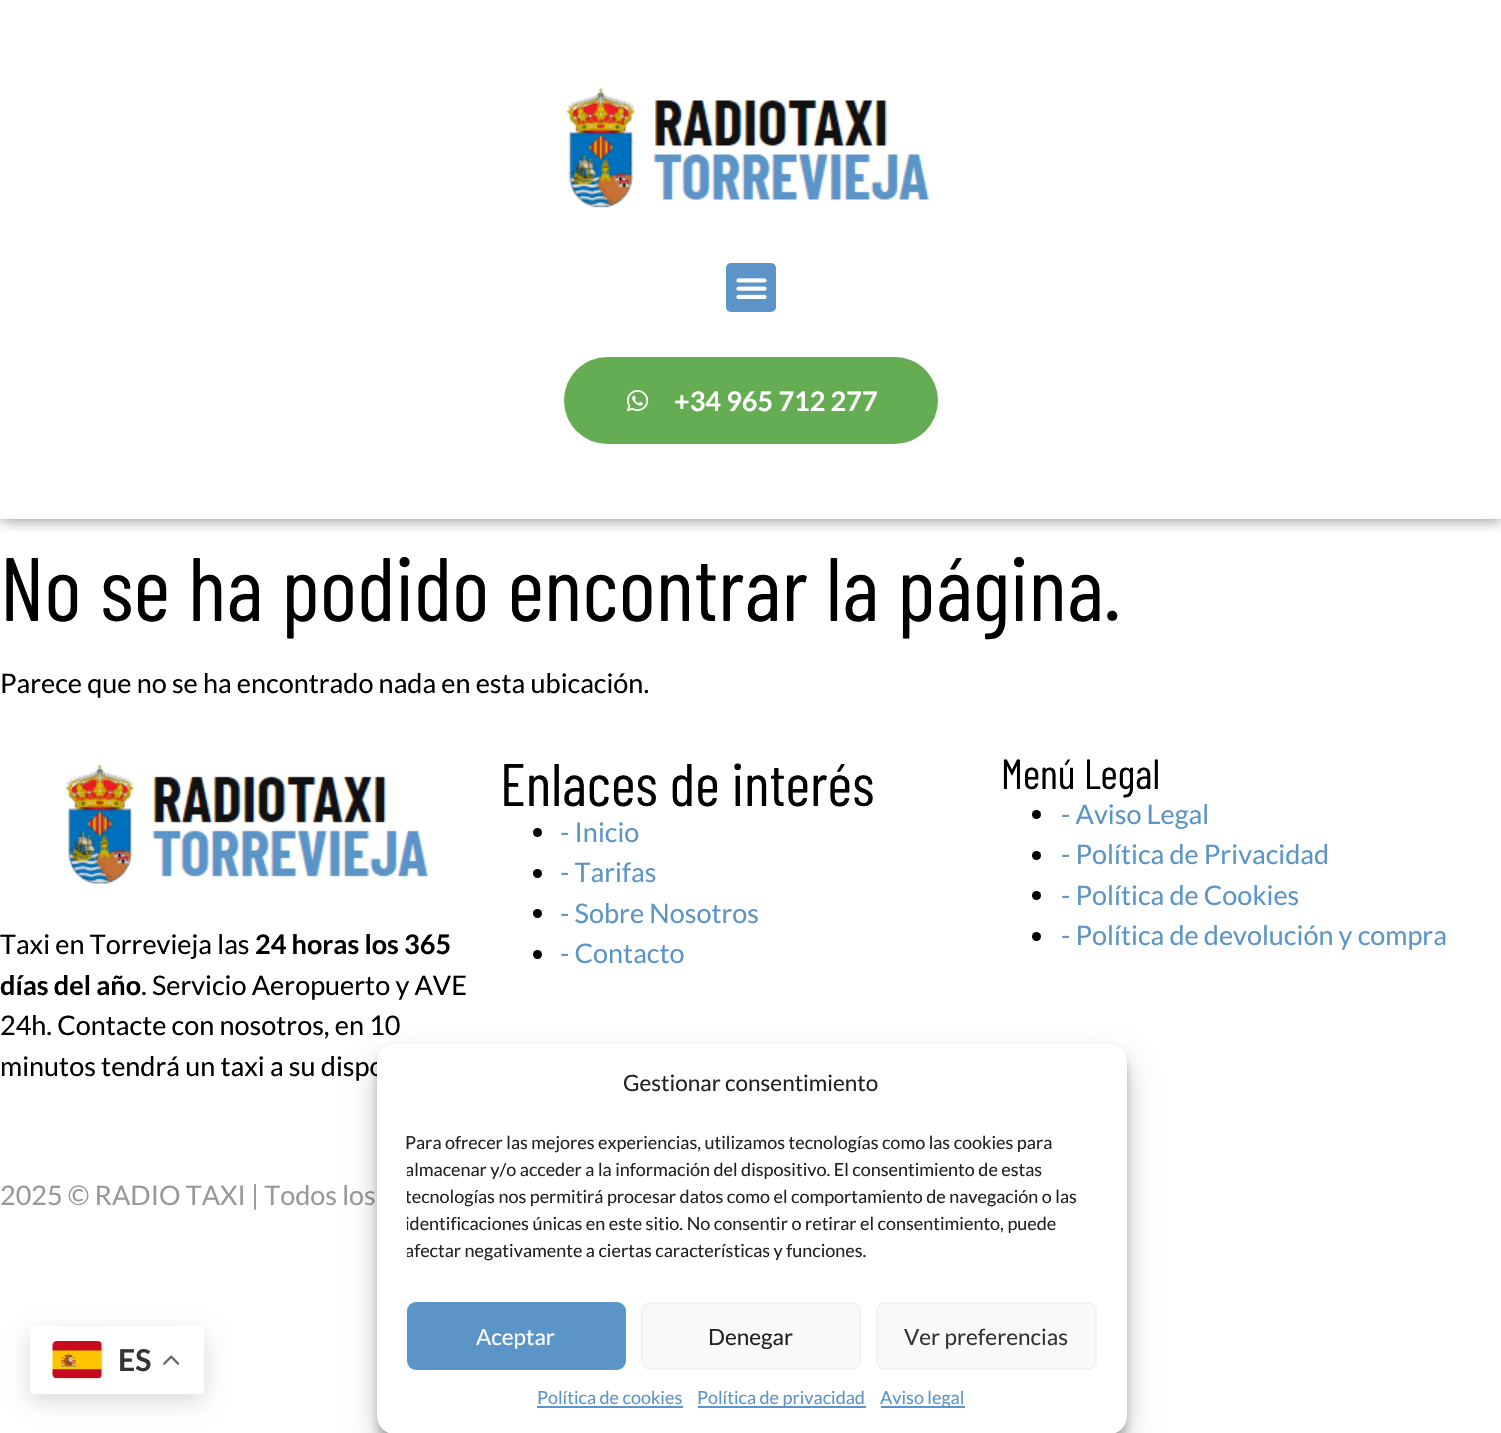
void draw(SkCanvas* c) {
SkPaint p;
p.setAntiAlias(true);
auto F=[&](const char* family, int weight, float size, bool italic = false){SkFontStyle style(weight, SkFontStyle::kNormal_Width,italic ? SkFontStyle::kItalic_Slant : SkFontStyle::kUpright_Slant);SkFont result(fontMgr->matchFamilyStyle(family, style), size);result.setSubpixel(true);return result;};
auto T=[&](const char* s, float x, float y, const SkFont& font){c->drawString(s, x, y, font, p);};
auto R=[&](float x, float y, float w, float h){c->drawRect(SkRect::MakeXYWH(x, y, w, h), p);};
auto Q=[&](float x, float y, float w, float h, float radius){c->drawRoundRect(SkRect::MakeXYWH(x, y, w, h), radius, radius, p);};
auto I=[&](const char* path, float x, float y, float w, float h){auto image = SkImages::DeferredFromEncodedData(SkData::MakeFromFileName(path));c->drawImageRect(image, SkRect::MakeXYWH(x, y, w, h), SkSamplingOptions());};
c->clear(0xffffffff);
c->save();
c->clipRect(SkRect::MakeXYWH(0,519,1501,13));
p.setColor(0x80000000);
p.setMaskFilter(SkMaskFilter::MakeBlur(kNormal_SkBlurStyle, 7.5));
c->drawRect(SkRect::MakeXYWH(0,0,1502,519),p);
p.setMaskFilter(nullptr);
c->restore();
I("1.png",566,88,363,120);
p.setColor(0xff5b95c8);
Q(726,263,50,49,5);
I("2.png",736,278,31,21);
p.setColor(0xff65ad52);
Q(564,357,374,87,43.5);
I("3.png",626,390,23,22);
auto f1 = F("Lato",700,27);
p.setColor(0xffffffff);
T("+34 965 712 277",674,411,f1);
auto f2 = F("Barlow Condensed",400,90);
p.setColor(0xff000000);
T("No se ha podido encontrar la página.",0,621,f2);
auto f3 = F("Lato",400,27);
T("Parece que no se ha encontrado nada en esta ubicación.",0,693,f3);
auto f4 = F("Barlow Condensed",400,60);
T("Enlaces de interés",500,806,f4);
c->drawCircle(537.5,832.5,4.5,p);
p.setColor(0xff5b95c8);
T("- Inicio",560,842,f3);
p.setColor(0xff000000);
c->drawCircle(537.5,873.5,4.5,p);
p.setColor(0xff5b95c8);
T("- Tarifas",560,882,f3);
p.setColor(0xff000000);
c->drawCircle(537.5,913.5,4.5,p);
p.setColor(0xff5b95c8);
T("- Sobre Nosotros",560,923,f3);
p.setColor(0xff000000);
c->drawCircle(537.5,954.5,4.5,p);
p.setColor(0xff5b95c8);
T("- Contacto",560,963,f3);
auto f5 = F("Barlow Condensed",400,42);
p.setColor(0xff000000);
T("Menú Legal",1001,789,f5);
c->drawCircle(1036.5,814.5,4.5,p);
p.setColor(0xff5b95c8);
T("- Aviso Legal",1061,824,f3);
p.setColor(0xff000000);
c->drawCircle(1036.5,855.5,4.5,p);
p.setColor(0xff5b95c8);
T("- Política de Privacidad",1061,864,f3);
p.setColor(0xff000000);
c->drawCircle(1036.5,895.5,4.5,p);
p.setColor(0xff5b95c8);
T("- Política de Cookies",1061,905,f3);
p.setColor(0xff000000);
c->drawCircle(1036.5,936.5,4.5,p);
p.setColor(0xff5b95c8);
T("- Política de devolución y compra",1061,945,f3);
I("4.png",65,764,363,120);
p.setColor(0xff000000);
T("Taxi en Torrevieja las",0,954,f3);
T("24 horas los 365",255,954,f1);
T("días del año",0,995,f1);
T(". Servicio Aeropuerto y AVE",141,995,f3);
T("24h. Contacte con nosotros, en 10",0,1035,f3);
T("minutos tendrá un taxi a su dispo",0,1076,f3);
p.setColor(0xff999999);
T("2025 © RADIO TAXI | Todos los",0,1205,f3);
p.setColor(0x26000000);
p.setMaskFilter(SkMaskFilter::MakeBlur(kNormal_SkBlurStyle, 11));
c->drawRoundRect(SkRect::MakeXYWH(30,1334,174,67),3,3,p);
p.setMaskFilter(nullptr);
p.setColor(0xffffffff);
Q(30,1326,174,68,3);
I("5.png",52,1341,51,38);
auto f6 = F("Lato",700,30);
p.setColor(0xff333333);
T("ES",118,1371,f6);
I("6.png",163,1355,16,10);
p.setColor(0x3b000000);
p.setMaskFilter(SkMaskFilter::MakeBlur(kNormal_SkBlurStyle, 4.5));
c->drawRoundRect(SkRect::MakeXYWH(377,1053,750,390),18,18,p);
p.setMaskFilter(nullptr);
p.setColor(0x30000000);
p.setMaskFilter(SkMaskFilter::MakeBlur(kNormal_SkBlurStyle, 15));
c->drawRoundRect(SkRect::MakeXYWH(377,1059,750,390),18,18,p);
p.setMaskFilter(nullptr);
p.setColor(0xffffffff);
Q(377,1044,750,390,18);
auto f7 = F("Lato",400,22.5);
p.setColor(0xff222222);
T("Gestionar consentimiento",623,1091,f7);
auto f8 = F("Lato",400,18);
T("Para ofrecer las mejores experiencias, utilizamos tecnologías como las cookies para",405,1149,f8);
c->save();
c->clipRect(SkRect::MakeXYWH(407,1130,690,142));
T("almacenar y/o acceder a la información del dispositivo. El consentimiento de estas",405,1176,f8);
T("tecnologías nos permitirá procesar datos como el comportamiento de navegación o las",405,1203,f8);
T("identificaciones únicas en este sitio. No consentir o retirar el consentimiento, puede",405,1230,f8);
T("afectar negativamente a ciertas características y funciones.",405,1257,f8);
c->restore();
p.setColor(0xff5b95c8);
c->drawRoundRect(SkRect::MakeXYWH(408,1303,217,66),8,8,p);
p.setStroke(true);
p.setStrokeWidth(2);
c->drawRoundRect(SkRect::MakeXYWH(408,1303,217,66),8,8,p);
p.setStroke(false);
p.setColor(0xffffffff);
T("Aceptar",476,1345,f7);
p.setColor(0xfff9f9f9);
c->drawRoundRect(SkRect::MakeXYWH(642,1303,218,66),8,8,p);
p.setStroke(true);
p.setColor(0xfff2f2f2);
c->drawRoundRect(SkRect::MakeXYWH(642,1303,218,66),8,8,p);
p.setStroke(false);
p.setColor(0xff222222);
T("Denegar",708,1345,f7);
p.setColor(0xfff9f9f9);
c->drawRoundRect(SkRect::MakeXYWH(877,1303,219,66),8,8,p);
p.setStroke(true);
p.setColor(0xfff2f2f2);
c->drawRoundRect(SkRect::MakeXYWH(877,1303,219,66),8,8,p);
p.setStroke(false);
p.setColor(0xff333333);
T("Ver preferencias",904,1345,f7);
p.setColor(0xff5b95c8);
T("Política de cookies",537,1404,f8);
R(537,1406,146,2);
R(698,1406,168,2);
T("Política de privacidad",697,1404,f8);
R(881,1406,84,2);
T("Aviso legal",880,1404,f8);
}
